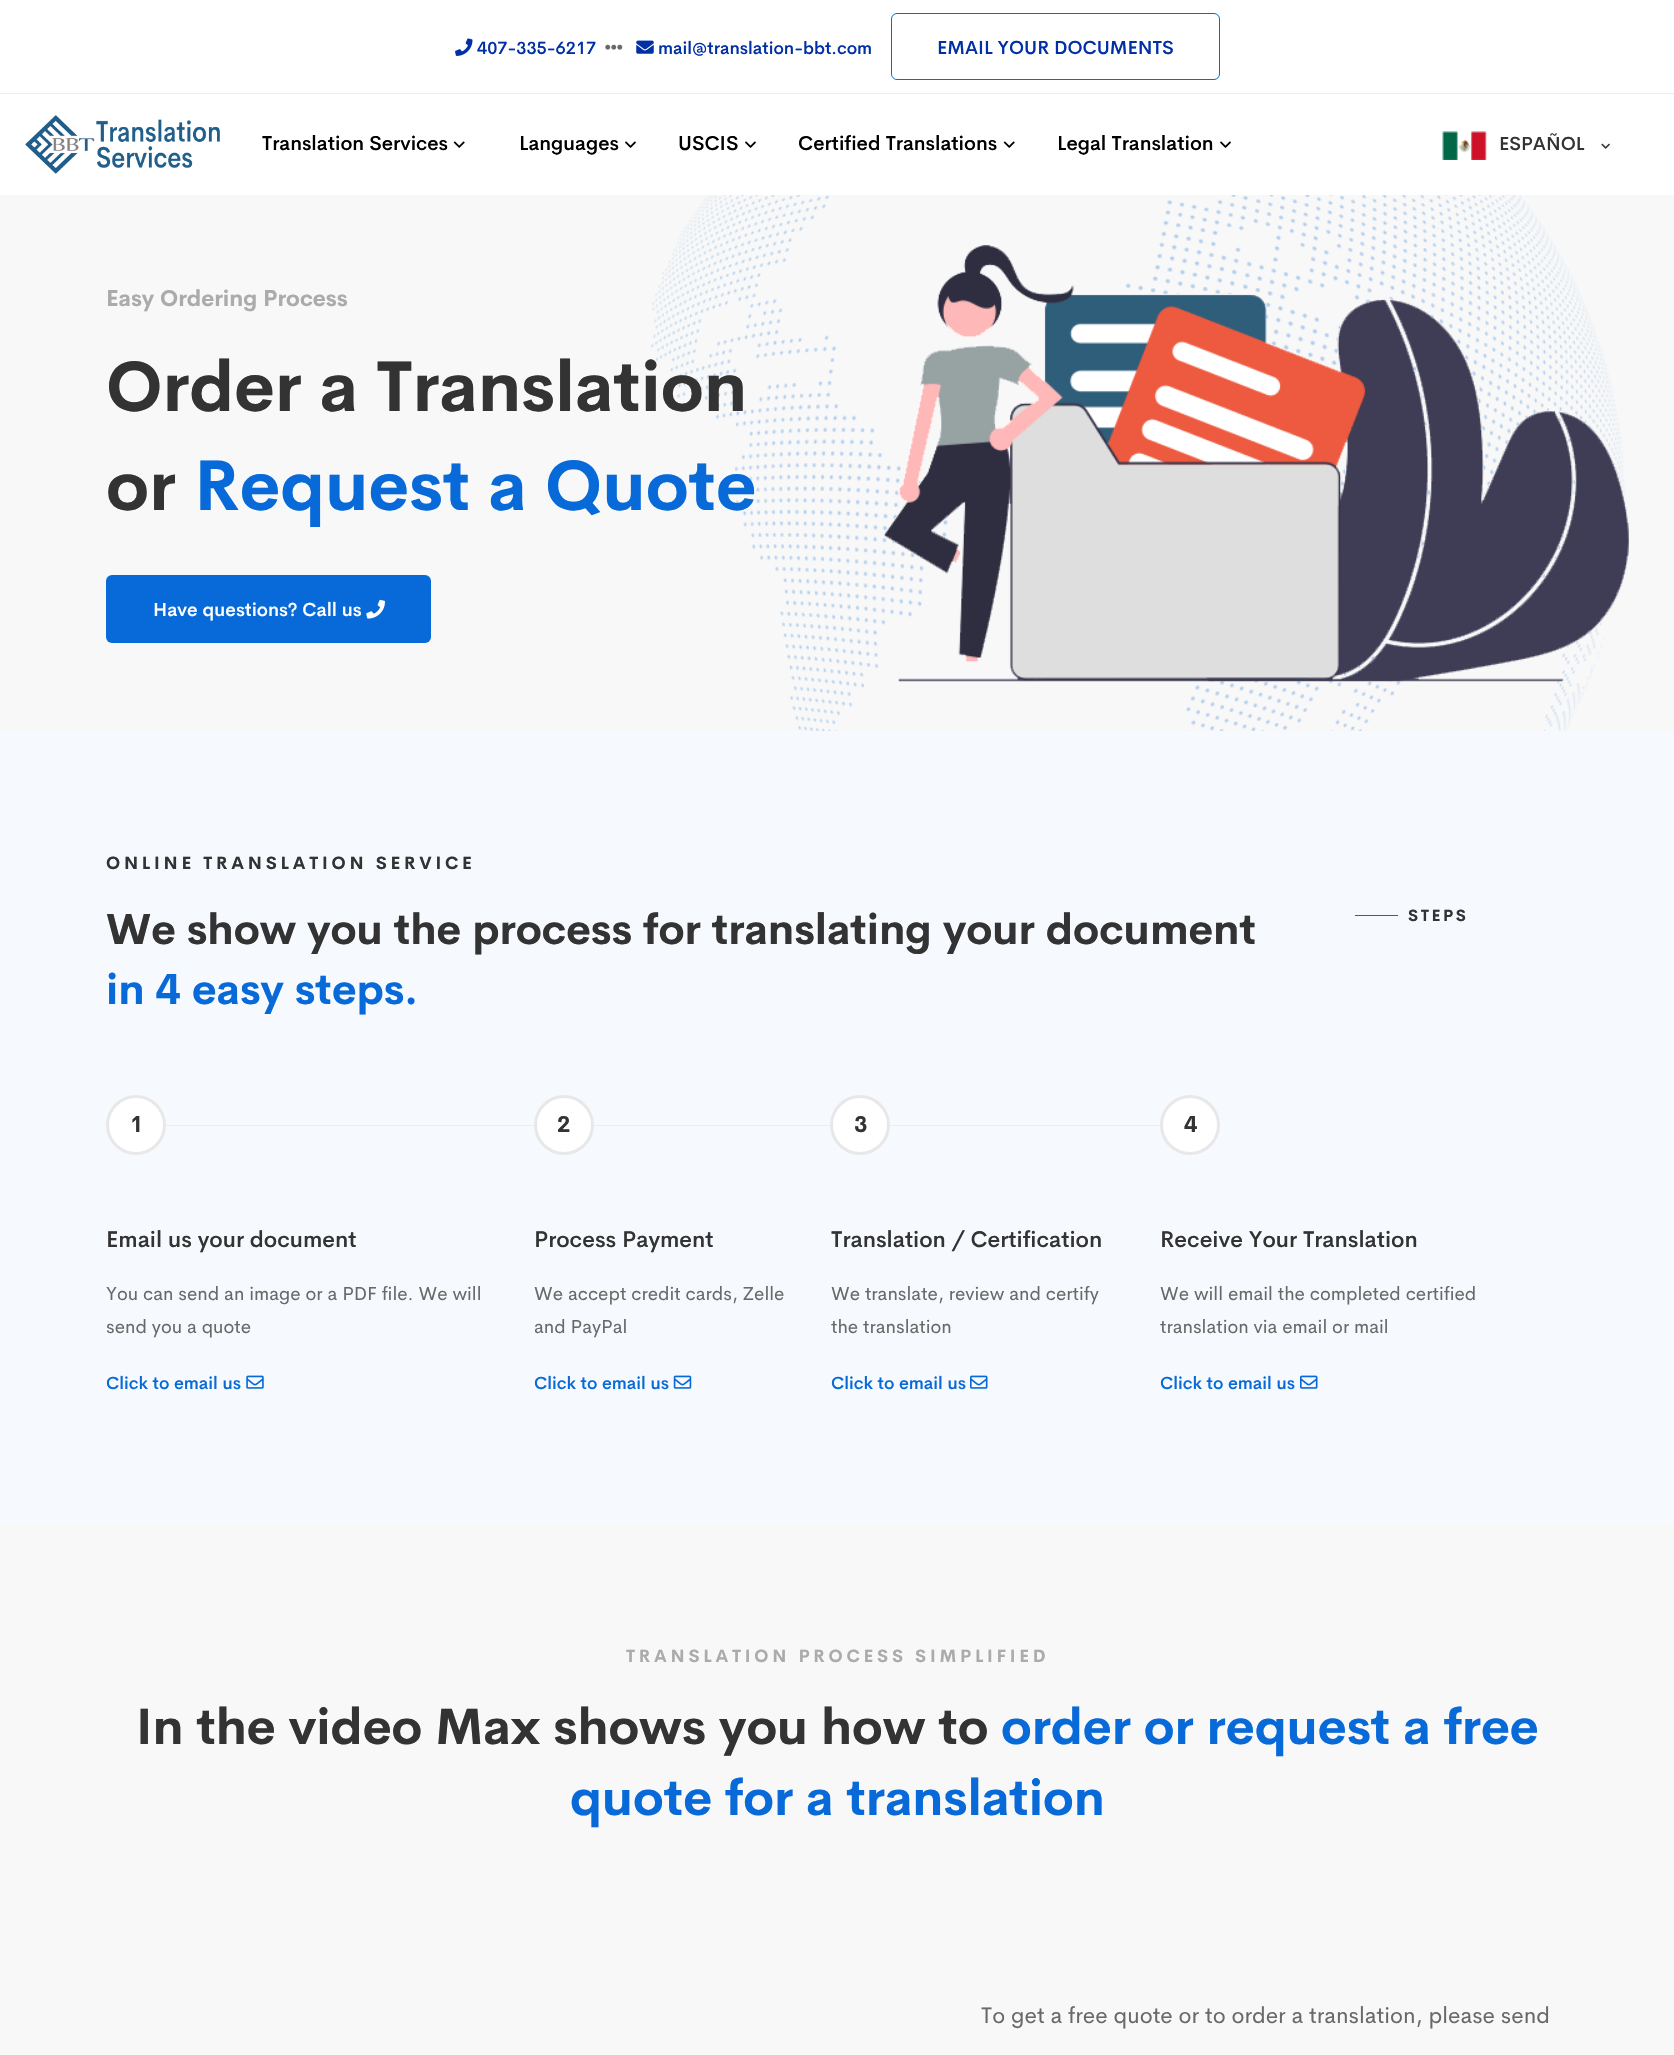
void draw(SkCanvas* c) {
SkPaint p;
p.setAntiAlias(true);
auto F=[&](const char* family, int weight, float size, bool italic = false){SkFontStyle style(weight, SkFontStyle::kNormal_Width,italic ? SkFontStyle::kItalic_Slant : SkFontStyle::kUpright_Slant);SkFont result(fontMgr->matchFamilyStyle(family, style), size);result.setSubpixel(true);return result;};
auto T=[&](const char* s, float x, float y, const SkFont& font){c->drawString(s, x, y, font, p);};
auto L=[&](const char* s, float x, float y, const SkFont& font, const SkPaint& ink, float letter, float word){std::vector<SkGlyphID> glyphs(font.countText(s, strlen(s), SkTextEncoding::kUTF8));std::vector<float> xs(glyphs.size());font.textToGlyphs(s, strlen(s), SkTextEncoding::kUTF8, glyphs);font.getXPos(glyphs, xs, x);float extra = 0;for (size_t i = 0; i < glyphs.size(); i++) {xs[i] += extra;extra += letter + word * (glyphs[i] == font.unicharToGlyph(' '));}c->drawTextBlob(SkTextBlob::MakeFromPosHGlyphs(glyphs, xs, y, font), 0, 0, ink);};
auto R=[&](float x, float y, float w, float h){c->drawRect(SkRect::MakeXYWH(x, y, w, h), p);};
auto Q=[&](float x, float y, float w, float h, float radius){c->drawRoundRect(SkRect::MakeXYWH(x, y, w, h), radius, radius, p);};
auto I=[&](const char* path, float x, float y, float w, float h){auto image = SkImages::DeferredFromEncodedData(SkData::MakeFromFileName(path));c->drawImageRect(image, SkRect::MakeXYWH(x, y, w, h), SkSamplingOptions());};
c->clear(0xffffffff);
p.setColor(0xffededed);
R(0,93,1674,1);
I("1.png",455,38,18,18);
auto f1 = F("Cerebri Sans",500,17.5);
p.setColor(0xff002fa6);
T("407-335-6217",477,54,f1);
I("2.png",605,44,18,6);
I("3.png",636,40,18,14);
T("mail@translation-bbt.com",658,54,f1);
p.setStroke(true);
p.setStrokeWidth(1);
p.setColor(0xff086ad8);
c->drawRoundRect(SkRect::MakeXYWH(891.5,13.5,328,66),5.5,5.5,p);
auto f2 = F("Cerebri Sans",500,18.75);
p.setStroke(false);
p.setColor(0xff002fa6);
T("EMAIL YOUR DOCUMENTS",937,54,f2);
I("4.png",25,115,195,59);
auto f3 = F("Cerebri Sans",500,20);
p.setColor(0xff000000);
T("Translation Services",262,150,f3);
I("5.png",453,141,12,7);
T("Languages",519,150,f3);
I("6.png",625,141,11,7);
T("USCIS",678,150,f3);
I("6.png",745,141,11,7);
T("Certified Translations",798,150,f3);
I("5.png",1003,141,12,7);
T("Legal Translation",1057,150,f3);
I("6.png",1220,141,11,7);
I("7.png",1442,131,45,29);
p.setColor(0xff333333);
T("ESPAÑOL",1499,150,f2);
I("8.png",1601,143,9,6);
p.setColor(0xfff8f8f8);
R(0,195,1674,536);
I("9.png",651,195,974,536);
auto f4 = F("Cerebri Sans",700,22.5);
p.setColor(0xffababab);
T("Easy Ordering Process",106,306,f4);
auto f5 = F("Cerebri Sans",700,70);
p.setColor(0xff333333);
T("Order a Translation",106,411,f5);
T("or",106,510,f5);
p.setColor(0xff086ad8);
T("Request a Quote",194,510,f5);
Q(106,575,325,68,6);
p.setColor(0xffffffff);
T("Have questions? Call us",153,616,f2);
I("10.png",366,599,19,20);
I("11.png",883,245,746,437);
p.setColor(0xfff6fafe);
R(0,731,1674,793);
auto f6 = F("Cerebri Sans",700,17.5);
p.setColor(0xff333333);
L("ONLINE TRANSLATION SERVICE",106,869,f6,p,3.75,0);
auto f7 = F("Cerebri Sans",700,42.5);
T("We show you the process for translating your document",106,944,f7);
p.setColor(0xff086ad8);
T("in 4 easy steps.",106,1004,f7);
R(1355,915,43,1);
auto f8 = F("Cerebri Sans",700,16);
p.setColor(0xff333333);
L("STEPS",1408,921,f8,p,2.5,0);
p.setColor(0xffededed);
R(106,1125,1054,1);
p.setColor(0xffffffff);
c->drawCircle(136,1125,28.5,p);
p.setStroke(true);
p.setStrokeWidth(3);
p.setColor(0xffe8e8e8);
c->drawCircle(136,1125,28.5,p);
p.setStroke(false);
p.setColor(0xff333333);
T("1",130,1132,f4);
auto f9 = F("Cerebri Sans",500,22.5);
T("Email us your document",106,1247,f9);
auto f10 = F("Cerebri Sans",400,18.75);
p.setColor(0xff696969);
T("You can send an image or a PDF file. We will",106,1300,f10);
T("send you a quote",106,1333,f10);
p.setColor(0xff086ad8);
T("Click to email us",106,1389,f1);
I("12.png",246,1375,18,14);
p.setColor(0xffffffff);
c->drawCircle(564,1125,28.5,p);
p.setStroke(true);
p.setColor(0xffe8e8e8);
c->drawCircle(564,1125,28.5,p);
p.setStroke(false);
p.setColor(0xff333333);
T("2",557,1132,f4);
T("Process Payment",534,1247,f9);
p.setColor(0xff696969);
T("We accept credit cards, Zelle",534,1300,f10);
T("and PayPal",534,1333,f10);
p.setColor(0xff086ad8);
T("Click to email us",534,1389,f1);
I("13.png",673,1375,19,14);
p.setColor(0xffffffff);
c->drawCircle(860,1125,28.5,p);
p.setStroke(true);
p.setColor(0xffe8e8e8);
c->drawCircle(860,1125,28.5,p);
p.setStroke(false);
p.setColor(0xff333333);
T("3",854,1132,f4);
T("Translation / Certification",831,1247,f9);
p.setColor(0xff696969);
T("We translate, review and certify",831,1300,f10);
T("the translation",831,1333,f10);
p.setColor(0xff086ad8);
T("Click to email us",831,1389,f1);
I("14.png",970,1375,18,14);
p.setColor(0xffffffff);
c->drawCircle(1190,1125,28.5,p);
p.setStroke(true);
p.setColor(0xffe8e8e8);
c->drawCircle(1190,1125,28.5,p);
p.setStroke(false);
p.setColor(0xff333333);
T("4",1184,1132,f4);
T("Receive Your Translation",1160,1247,f9);
p.setColor(0xff696969);
T("We will email the completed certified",1160,1300,f10);
T("translation via email or mail",1160,1333,f10);
p.setColor(0xff086ad8);
T("Click to email us",1160,1389,f1);
I("14.png",1300,1375,18,14);
p.setColor(0xfff8f8f8);
R(0,1524,1674,531);
p.setColor(0xffababab);
L("TRANSLATION PROCESS SIMPLIFIED",626,1662,f6,p,3.75,0);
auto f11 = F("Cerebri Sans",700,50);
p.setColor(0xff333333);
T("In the video Max shows you how to",136,1744,f11);
p.setColor(0xff086ad8);
T("order or request a free",1001,1744,f11);
T("quote for a translation",570,1815,f11);
auto f12 = F("Cerebri Sans",400,22.5);
p.setColor(0xff696969);
T("To get a free quote or to order a translation, please send",981,2023,f12);
}
